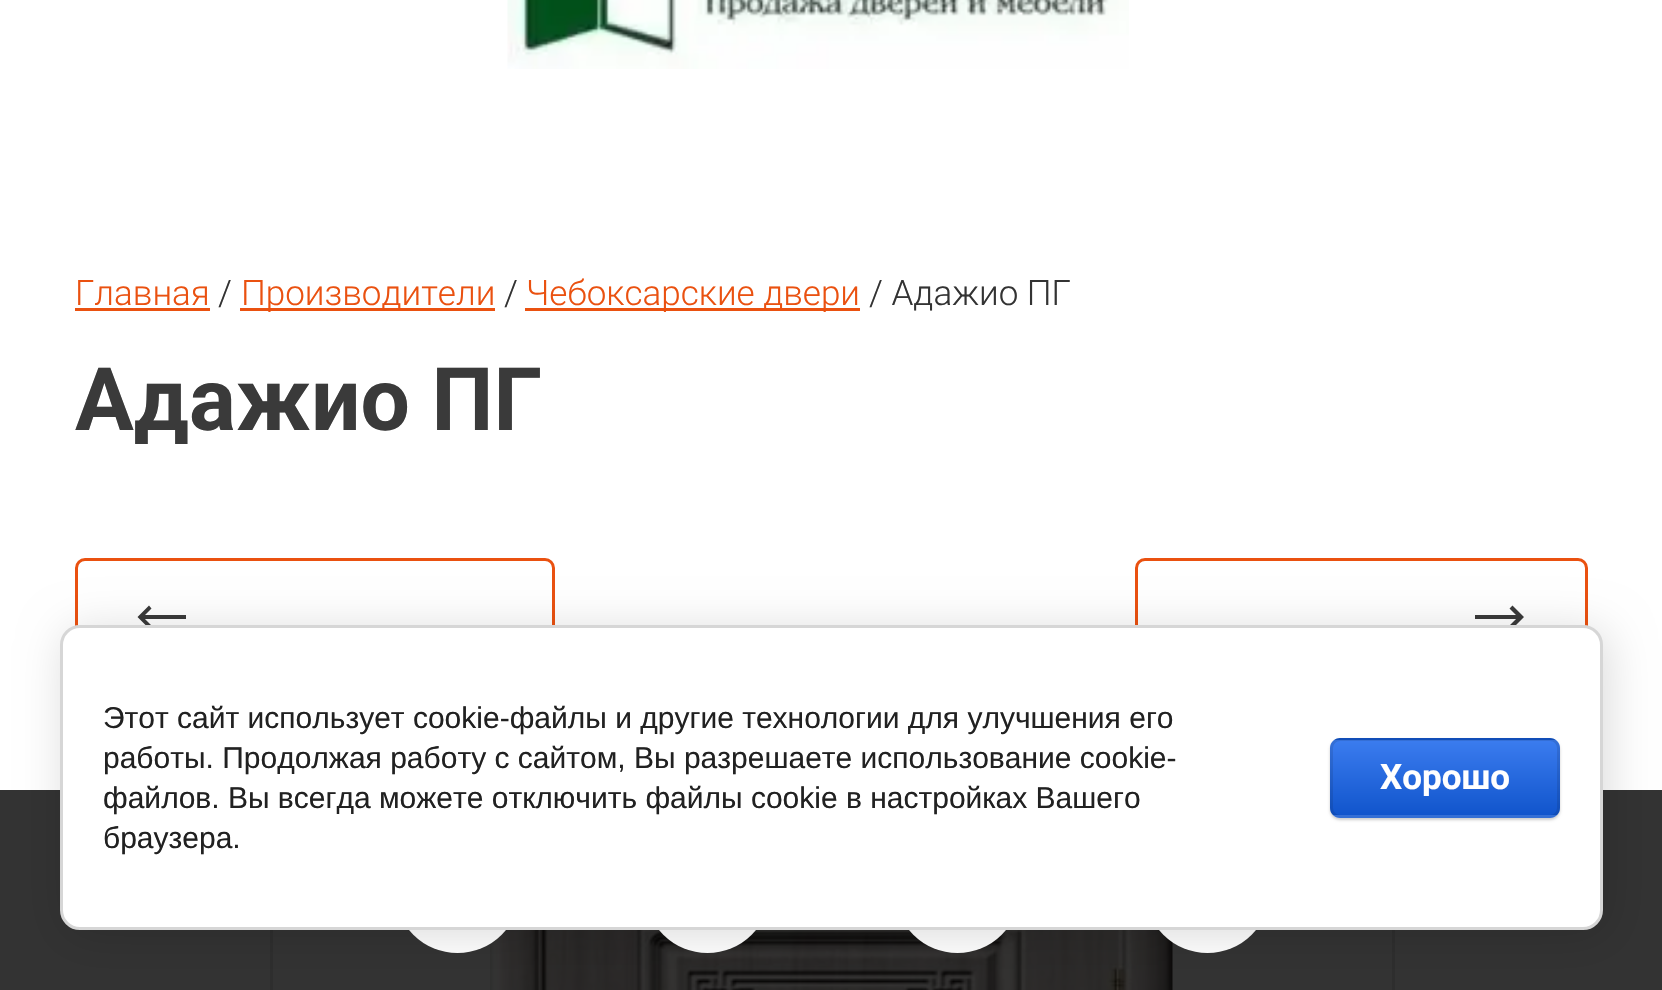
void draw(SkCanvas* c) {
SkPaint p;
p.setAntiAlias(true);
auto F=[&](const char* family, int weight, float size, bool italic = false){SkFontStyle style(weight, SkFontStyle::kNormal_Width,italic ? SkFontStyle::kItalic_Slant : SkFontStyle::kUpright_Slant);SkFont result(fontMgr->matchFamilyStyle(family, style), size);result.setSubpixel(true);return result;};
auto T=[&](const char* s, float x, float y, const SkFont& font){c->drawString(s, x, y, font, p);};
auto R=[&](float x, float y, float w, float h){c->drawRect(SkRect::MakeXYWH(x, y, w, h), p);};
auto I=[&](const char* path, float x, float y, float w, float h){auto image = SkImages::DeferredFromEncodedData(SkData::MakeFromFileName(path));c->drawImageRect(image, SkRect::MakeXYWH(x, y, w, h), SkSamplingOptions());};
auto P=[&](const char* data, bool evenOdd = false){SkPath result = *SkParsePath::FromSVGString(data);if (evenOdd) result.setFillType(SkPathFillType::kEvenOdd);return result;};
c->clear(0xffffffff);
I("1.png",507,0,622,69);
auto f1 = F("Roboto",300,35);
p.setColor(0xffea5110);
T("Главная",75,305,f1);
R(75,308,135,3);
p.setColor(0xff333333);
T("/",218,305,f1);
p.setColor(0xffea5110);
R(240,308,255,3);
T("Производители",241,305,f1);
p.setColor(0xff333333);
T("/",504,305,f1);
p.setColor(0xffea5110);
R(525,308,335,3);
T("Чебоксарские двери",526,305,f1);
p.setColor(0xff333333);
T("/ Адажио ПГ",869,305,f1);
auto f2 = F("Roboto",700,87.5);
p.setColor(0xff3a3a3a);
T("Адажио ПГ",75,430,f2);
p.setStroke(true);
p.setStrokeWidth(3);
p.setColor(0xffea5110);
c->drawRoundRect(SkRect::MakeXYWH(76.5,559.5,477,122),8.5,8.5,p);
p.setStroke(false);
p.setColor(0xff3a3a3a);
c->drawPath(P("M149 628.5l-11.5-11.5l11.5-11.5l2.5 3l-8.5 8.5l8.5 8.5z"),p);
R(140,615,46,4);
p.setStroke(true);
p.setColor(0xffea5110);
c->drawRoundRect(SkRect::MakeXYWH(1136.5,559.5,450,122),8.5,8.5,p);
p.setStroke(false);
p.setColor(0xff3a3a3a);
c->drawPath(P("M1512.5 628.5l-3-3l8.5-8.5l-8.5-8.5l3-3l11.5 11.5z"),p);
R(1475,615,46,4);
p.setStroke(true);
p.setColor(0xffe6e6e6);
c->drawRect(SkRect::MakeXYWH(271.5,784.5,1122,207),p);
I("2.png",490,930,683,60);
p.setStroke(false);
p.setColor(0xcc000000);
R(0,790,1662,200);
p.setColor(0xffffffff);
c->drawCircle(457.5,890.5,62.5,p);
c->drawCircle(707.5,890.5,62.5,p);
c->drawCircle(957.5,890.5,62.5,p);
c->drawCircle(1207.5,890.5,62.5,p);
p.setColor(0x24000000);
p.setMaskFilter(SkMaskFilter::MakeBlur(kNormal_SkBlurStyle, 22.5));
c->drawRoundRect(SkRect::MakeXYWH(65,630,1543,305),20,20,p);
p.setMaskFilter(nullptr);
p.setColor(0xffffffff);
c->drawRoundRect(SkRect::MakeXYWH(61.5,626.5,1540,302),18.5,18.5,p);
p.setStroke(true);
p.setColor(0xffd6d6d6);
c->drawRoundRect(SkRect::MakeXYWH(61.5,626.5,1540,302),18.5,18.5,p);
auto f3 = F("Liberation Sans",400,30);
p.setStroke(false);
p.setColor(0xff212121);
T("Этот сайт использует cookie-файлы и другие технологии для улучшения его",103,728,f3);
T("работы. Продолжая работу с сайтом, Вы разрешаете использование cookie-",103,768,f3);
T("файлов. Вы всегда можете отключить файлы cookie в настройках Вашего",103,808,f3);
T("браузера.",103,848,f3);
p.setColor(0x33000000);
p.setMaskFilter(SkMaskFilter::MakeBlur(kNormal_SkBlurStyle, 1.5));
c->drawRoundRect(SkRect::MakeXYWH(1330,740,230,80),10,10,p);
p.setMaskFilter(nullptr);
c->save();
c->clipPath(P("M1340 738h210c5.5 0 10 4.5 10 10v60c0 5.5-4.5 10-10 10h-210c-5.5 0-10-4.5-10-10v-60c0-5.5 4.5-10 10-10z"),true);
{
const SkColor colors[] = {0xff3b7cef,0xff1155cc};
const float stops[] = {0,1};
const SkPoint ends[] = {{1445,665}, {1445,740}};
p.setShader(SkGradientShader::MakeLinear(ends, colors, stops, 2, SkTileMode::kClamp));
p.setAlpha(255);
}
R(1330,738,230,2);
{
const SkColor colors[] = {0xff3b7cef,0xff1155cc};
const float stops[] = {0,1};
const SkPoint ends[] = {{1445,740}, {1445,815}};
p.setShader(SkGradientShader::MakeLinear(ends, colors, stops, 2, SkTileMode::kClamp));
p.setAlpha(255);
}
R(1330,740,230,75);
{
const SkColor colors[] = {0xff3b7cef,0xff1155cc};
const float stops[] = {0,1};
const SkPoint ends[] = {{1445,815}, {1445,890}};
p.setShader(SkGradientShader::MakeLinear(ends, colors, stops, 2, SkTileMode::kClamp));
p.setAlpha(255);
}
R(1330,815,230,3);
c->restore();
p.setStroke(true);
p.setShader(nullptr);
p.setColor(0x1a000000);
c->drawRoundRect(SkRect::MakeXYWH(1331.5,739.5,227,77),8.5,8.5,p);
auto f4 = F("Roboto",700,35);
p.setStroke(false);
p.setColor(0xffffffff);
T("Хорошо",1380,789,f4);
}
